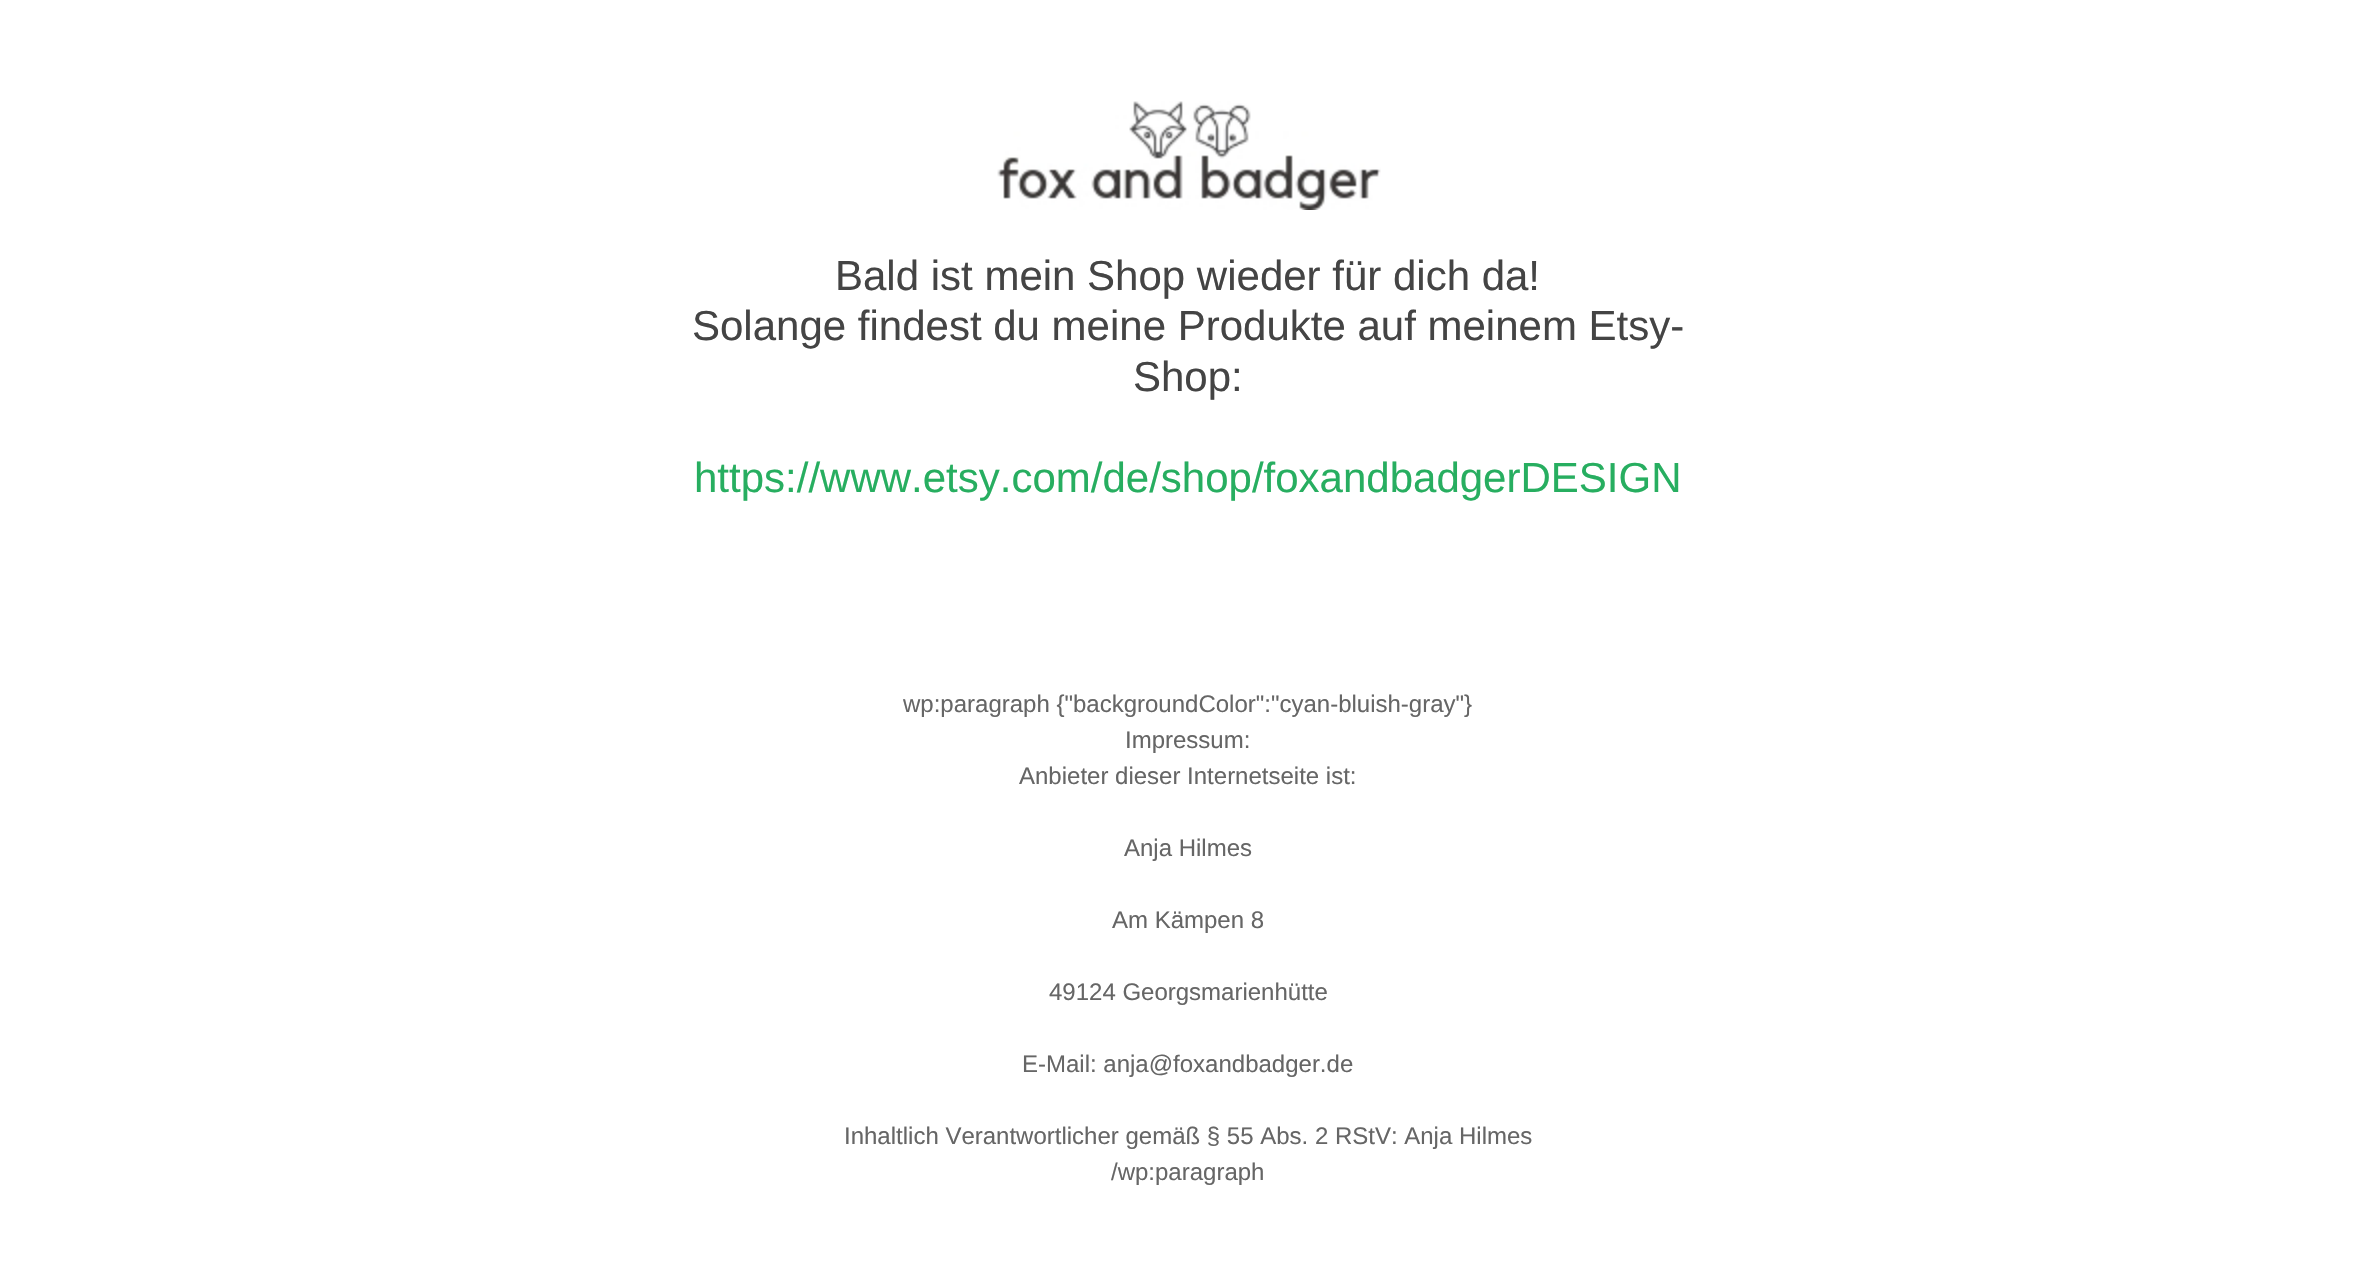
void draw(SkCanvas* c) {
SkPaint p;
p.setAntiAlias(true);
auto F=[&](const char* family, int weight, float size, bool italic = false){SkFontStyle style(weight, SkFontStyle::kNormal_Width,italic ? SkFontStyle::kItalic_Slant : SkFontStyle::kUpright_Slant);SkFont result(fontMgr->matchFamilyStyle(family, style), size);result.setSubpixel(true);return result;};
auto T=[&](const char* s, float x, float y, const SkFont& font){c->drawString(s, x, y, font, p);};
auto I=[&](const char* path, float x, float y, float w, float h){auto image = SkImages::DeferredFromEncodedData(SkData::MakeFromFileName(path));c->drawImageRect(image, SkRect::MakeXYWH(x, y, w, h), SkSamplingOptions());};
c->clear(0xffffffff);
I("1.png",997,101,384,109);
auto f1 = F("Liberation Sans",400,42);
p.setColor(0xff444444);
T("Bald ist mein Shop wieder für dich da!",835,290,f1);
T("Solange findest du meine Produkte auf meinem Etsy-",692,340,f1);
T("Shop:",1133,391,f1);
p.setColor(0xff27ae60);
T("https://www.etsy.com/de/shop/foxandbadgerDESIGN",694,492,f1);
auto f2 = F("Liberation Sans",400,24);
p.setColor(0xff666666);
T("wp:paragraph {\"backgroundColor\":\"cyan-bluish-gray\"}",903,712,f2);
T("Impressum:",1125,748,f2);
T("Anbieter dieser Internetseite ist:",1019,784,f2);
T("Anja Hilmes",1124,856,f2);
T("Am Kämpen 8",1112,928,f2);
T("49124 Georgsmarienhütte",1049,1000,f2);
T("E-Mail: anja@foxandbadger.de",1022,1072,f2);
T("Inhaltlich Verantwortlicher gemäß § 55 Abs. 2 RStV: Anja Hilmes",844,1144,f2);
T("/wp:paragraph",1111,1180,f2);
}
